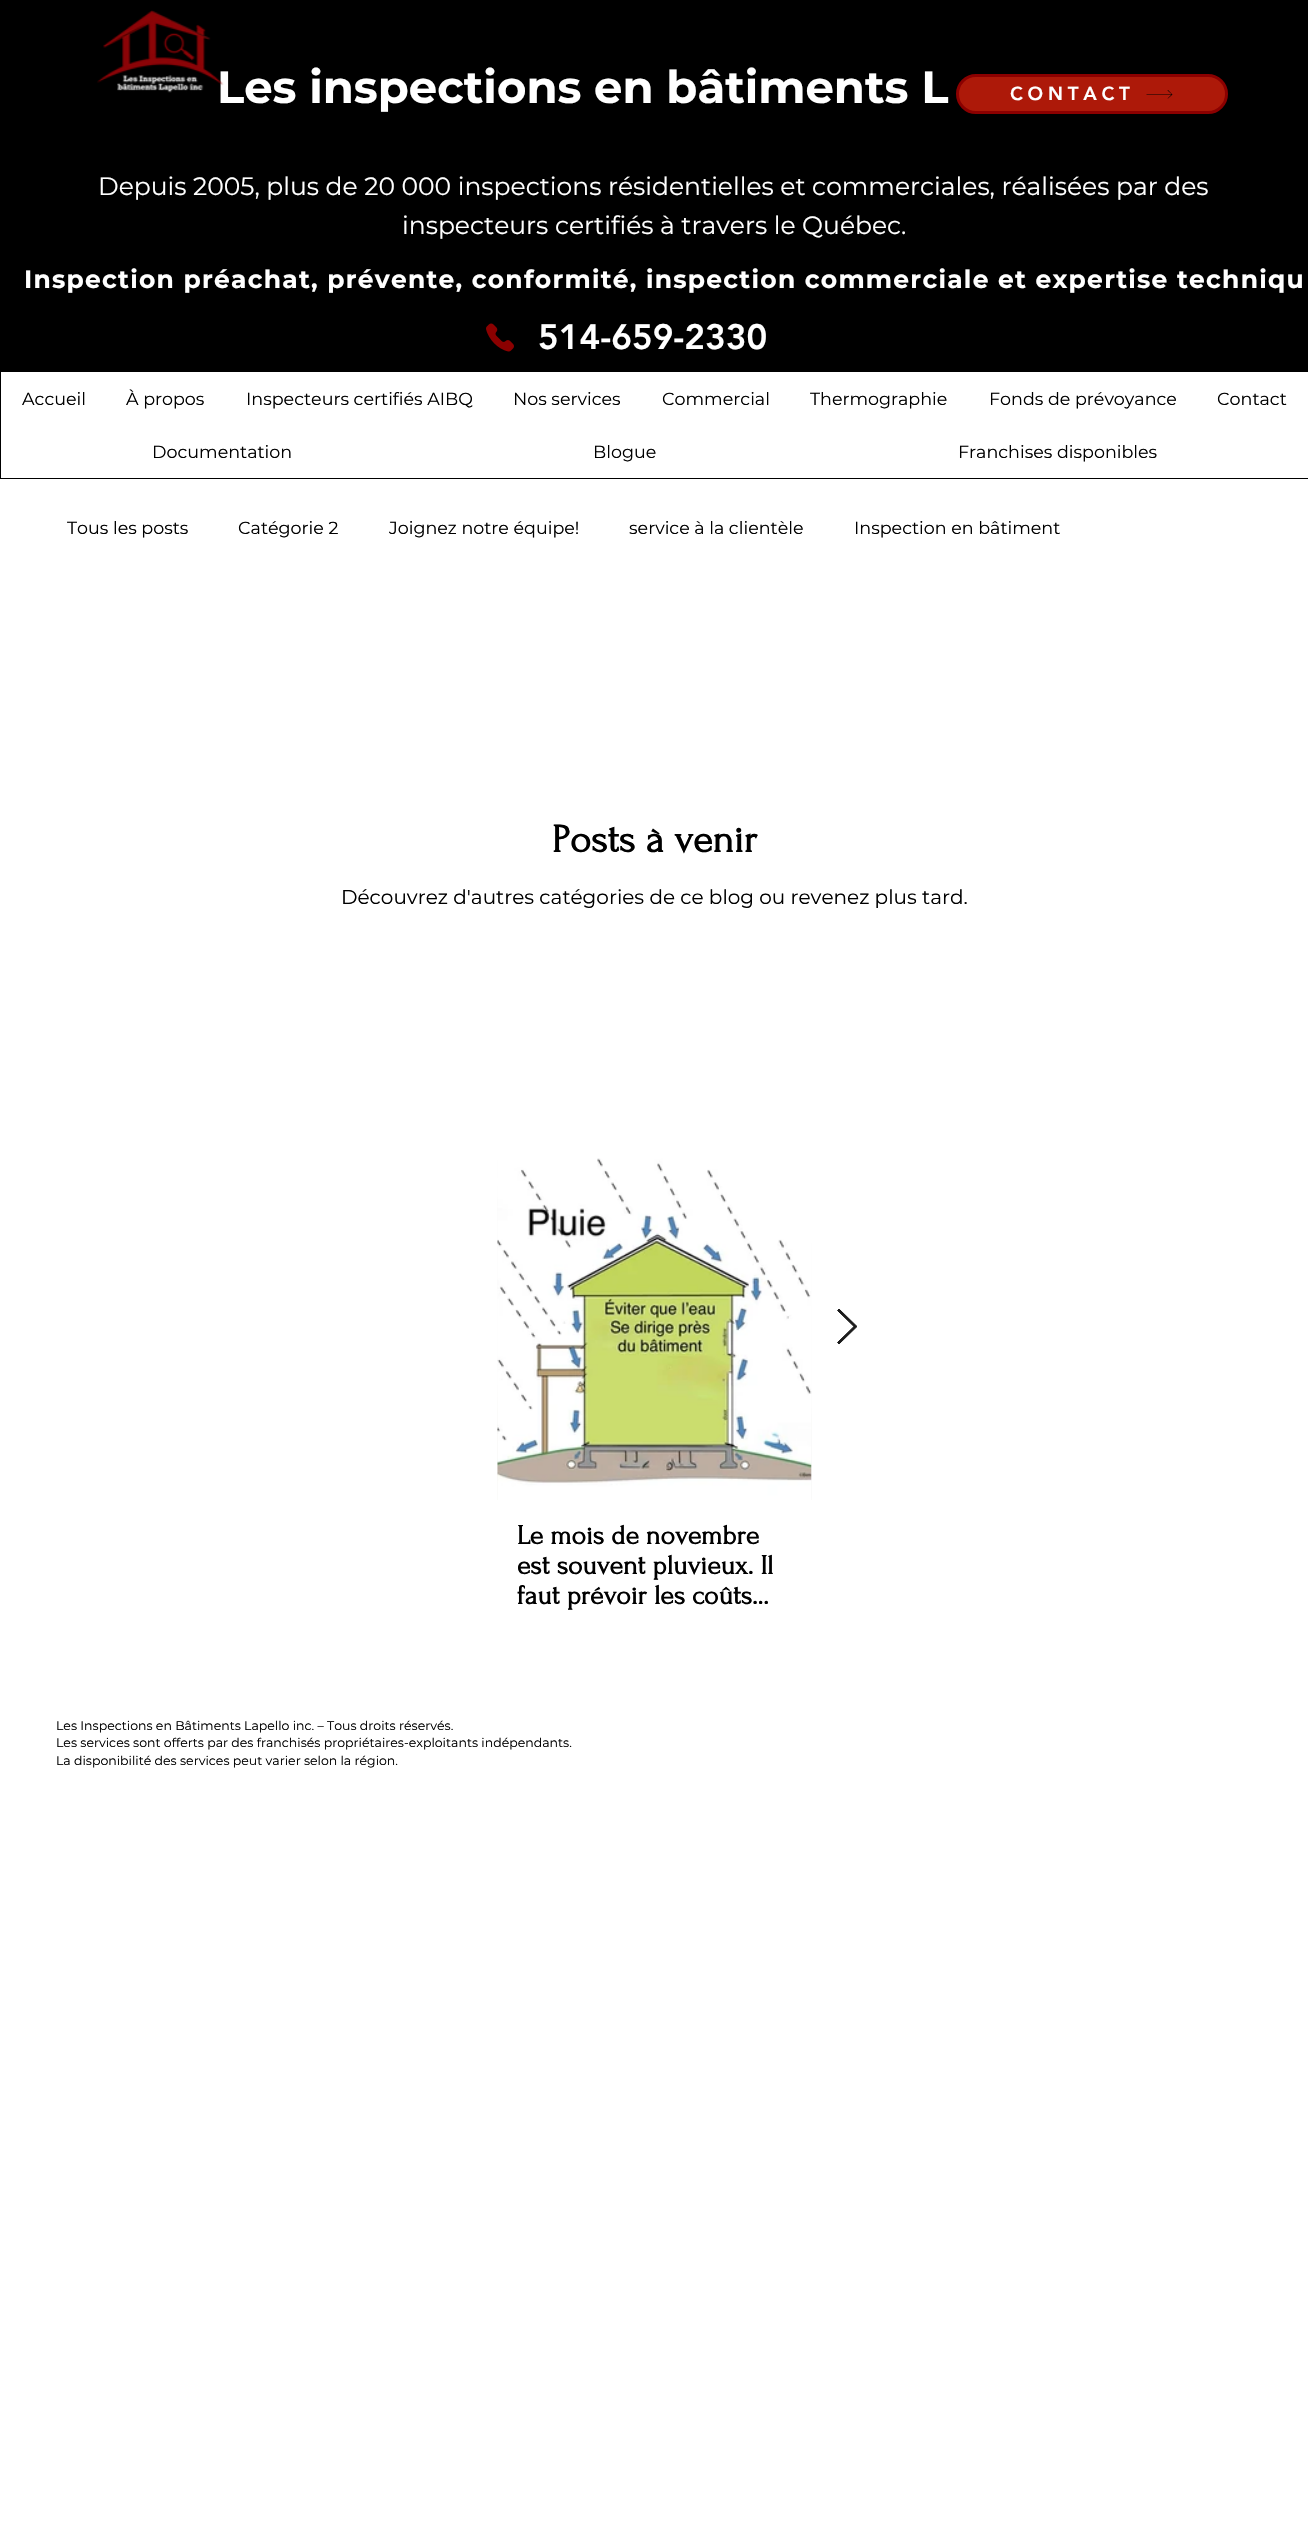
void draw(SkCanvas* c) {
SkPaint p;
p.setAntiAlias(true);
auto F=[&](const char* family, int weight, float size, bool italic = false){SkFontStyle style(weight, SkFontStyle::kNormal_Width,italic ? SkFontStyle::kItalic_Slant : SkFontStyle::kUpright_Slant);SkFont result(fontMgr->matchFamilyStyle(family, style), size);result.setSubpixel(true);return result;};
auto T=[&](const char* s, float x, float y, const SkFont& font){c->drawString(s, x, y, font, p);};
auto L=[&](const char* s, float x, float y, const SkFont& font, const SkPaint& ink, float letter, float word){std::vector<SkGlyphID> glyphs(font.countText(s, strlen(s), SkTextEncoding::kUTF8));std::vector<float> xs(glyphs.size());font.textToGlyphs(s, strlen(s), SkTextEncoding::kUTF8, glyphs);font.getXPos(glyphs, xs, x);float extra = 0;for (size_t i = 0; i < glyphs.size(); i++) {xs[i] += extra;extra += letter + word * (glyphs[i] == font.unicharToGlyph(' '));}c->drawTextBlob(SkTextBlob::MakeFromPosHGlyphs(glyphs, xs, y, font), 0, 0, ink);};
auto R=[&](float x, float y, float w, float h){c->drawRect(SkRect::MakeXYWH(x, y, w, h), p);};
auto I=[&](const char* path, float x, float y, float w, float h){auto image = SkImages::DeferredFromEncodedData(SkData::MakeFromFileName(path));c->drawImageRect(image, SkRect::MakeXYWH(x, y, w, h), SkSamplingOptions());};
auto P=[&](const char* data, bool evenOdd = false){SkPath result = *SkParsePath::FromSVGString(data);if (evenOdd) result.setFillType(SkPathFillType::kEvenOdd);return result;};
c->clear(0xffffffff);
p.setColor(0xff000000);
R(0,0,1308,371);
auto f1 = F("Montserrat",700,45);
p.setColor(0xffffffff);
T("Les inspections en bâtiments L",217,103,f1);
I("1.png",97,10,127,83);
auto f2 = F("Montserrat",400,25);
T("Depuis 2005, plus de 20 000 inspections résidentielles et commerciales, réalisées par des",98,195,f2);
T("inspecteurs certifiés à travers le Québec.",402,234,f2);
auto f3 = F("Montserrat",700,25);
L("Inspection préachat, prévente, conformité, inspection commerciale et expertise techniqu",24,288,f3,p,1.25,0);
I("2.png",486,323,28,29);
auto f4 = F("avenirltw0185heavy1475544",900,35);
T("514-659-2330",538,349,f4);
p.setStroke(true);
p.setStrokeWidth(1);
p.setColor(0xff000000);
c->drawRect(SkRect::MakeXYWH(.5,371.5,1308,107),p);
auto f5 = F("Montserrat",400,17.5);
p.setStroke(false);
T("Accueil",22,405,f5);
T("À propos",126,405,f5);
T("Inspecteurs certifiés AIBQ",246,405,f5);
T("Nos services",513,405,f5);
T("Commercial",662,405,f5);
T("Thermographie",810,405,f5);
T("Fonds de prévoyance",989,405,f5);
T("Contact",1217,405,f5);
T("Documentation",152,458,f5);
T("Blogue",593,458,f5);
T("Franchises disponibles",958,458,f5);
p.setColor(0xffad1909);
c->drawRoundRect(SkRect::MakeXYWH(957.5,75.5,269,37),18.5,18.5,p);
p.setStroke(true);
p.setStrokeWidth(3);
p.setColor(0xff8b0000);
c->drawRoundRect(SkRect::MakeXYWH(957.5,75.5,269,37),18.5,18.5,p);
auto f6 = F("avenirltw0185heavy1475544",900,18.75);
p.setStroke(false);
p.setColor(0xffffffff);
L("CONTACT",1010,100,f6,p,4.75,0);
p.setColor(0xff000000);
c->drawPath(P("M1168 90l-.5 .5l4 3.5h-25v.5h25l-4 4h.5l4.5-4z"),p);
T("Tous les posts",67,534,f5);
T("Catégorie 2",238,534,f5);
T("Joignez notre équipe!",389,534,f5);
T("service à la clientèle",629,534,f5);
T("Inspection en bâtiment",854,534,f5);
auto f7 = F("Forum",700,40);
T("Posts à venir",552,852,f7);
auto f8 = F("Montserrat",400,20);
T("Découvrez d'autres catégories de ce blog ou revenez plus tard.",341,904,f8);
p.setColor(0xff1a1a1a);
c->drawPath(P("M837.5 1310.5l1.5-1.5l18 17.5l-18 17.5l-1.5-1.5l16.5-16z"),p);
p.setStroke(true);
p.setStrokeWidth(1);
c->drawPath(P("M837.5 1310.5l1.5-1.5l18 17.5l-18 17.5l-1.5-1.5l16.5-16z"),p);
I("4.png",497,1160,315,340);
I("3.png",497,1158,315,342);
auto f9 = F("Forum",700,27.5);
p.setStroke(false);
p.setColor(0xff000000);
T("Le mois de novembre",517,1544,f9);
T("est souvent pluvieux. Il",517,1574,f9);
T("faut prévoir les coûts…",517,1604,f9);
auto f10 = F("Montserrat",400,12.5);
T("Les Inspections en Bâtiments Lapello inc. – Tous droits réservés.",56,1730,f10);
T("Les services sont offerts par des franchisés propriétaires-exploitants indépendants.",56,1747,f10);
T("La disponibilité des services peut varier selon la région.",56,1765,f10);
}
